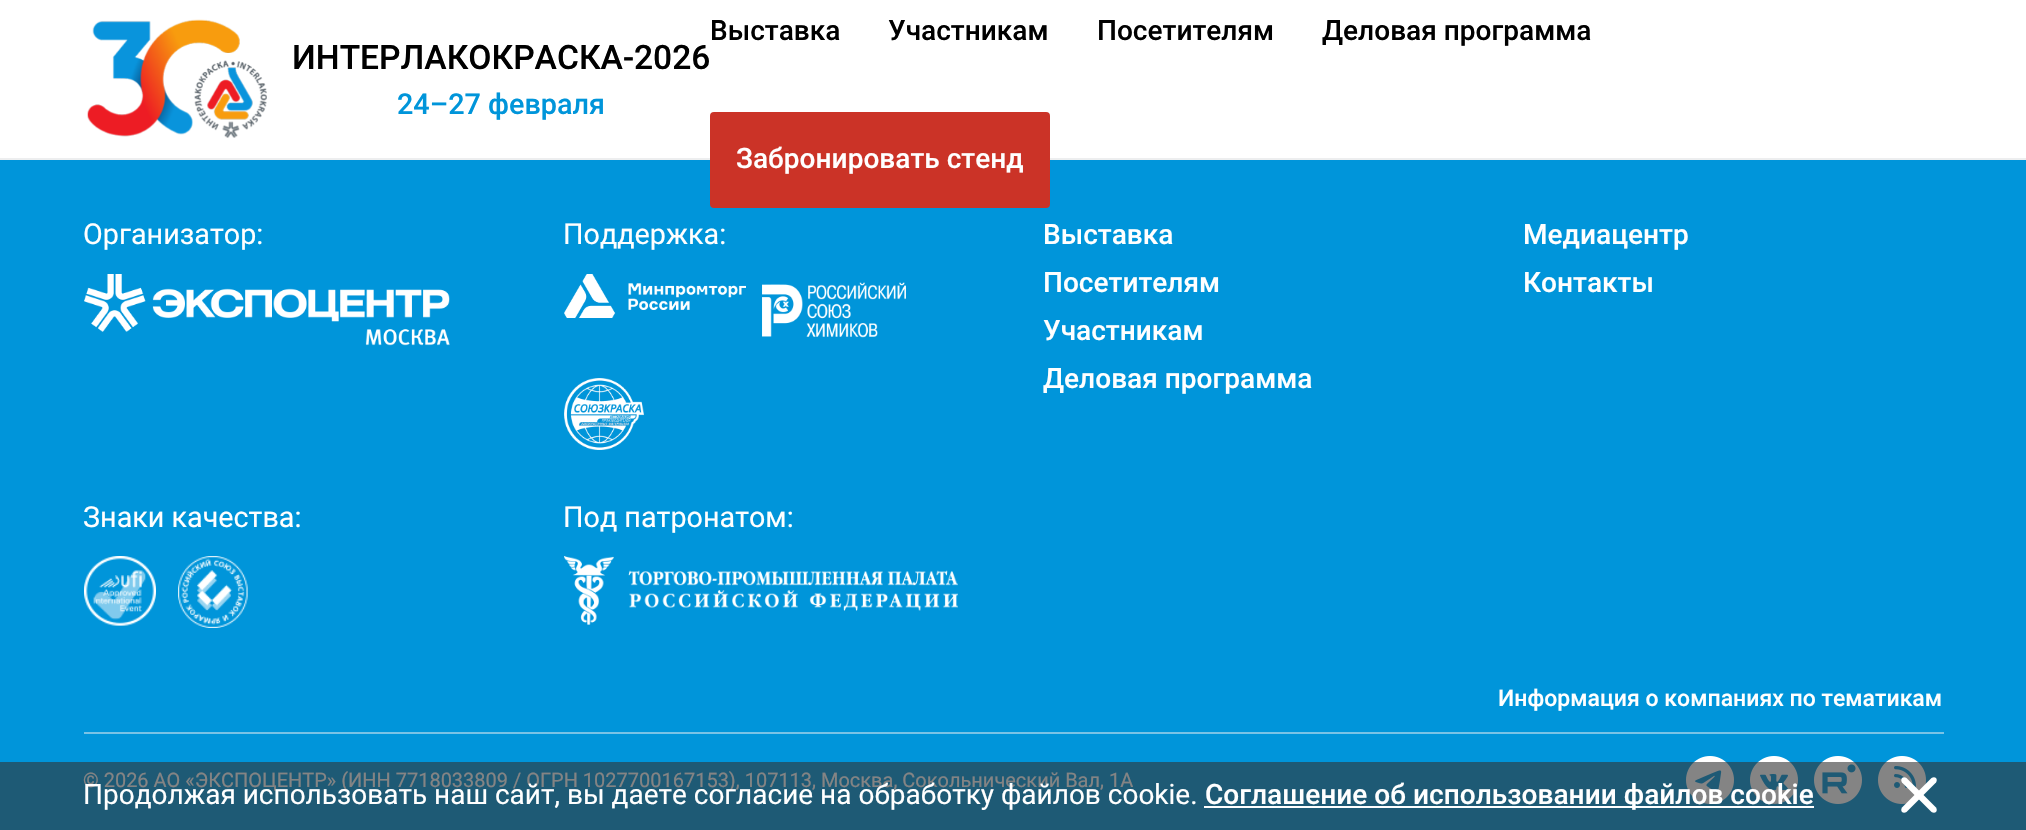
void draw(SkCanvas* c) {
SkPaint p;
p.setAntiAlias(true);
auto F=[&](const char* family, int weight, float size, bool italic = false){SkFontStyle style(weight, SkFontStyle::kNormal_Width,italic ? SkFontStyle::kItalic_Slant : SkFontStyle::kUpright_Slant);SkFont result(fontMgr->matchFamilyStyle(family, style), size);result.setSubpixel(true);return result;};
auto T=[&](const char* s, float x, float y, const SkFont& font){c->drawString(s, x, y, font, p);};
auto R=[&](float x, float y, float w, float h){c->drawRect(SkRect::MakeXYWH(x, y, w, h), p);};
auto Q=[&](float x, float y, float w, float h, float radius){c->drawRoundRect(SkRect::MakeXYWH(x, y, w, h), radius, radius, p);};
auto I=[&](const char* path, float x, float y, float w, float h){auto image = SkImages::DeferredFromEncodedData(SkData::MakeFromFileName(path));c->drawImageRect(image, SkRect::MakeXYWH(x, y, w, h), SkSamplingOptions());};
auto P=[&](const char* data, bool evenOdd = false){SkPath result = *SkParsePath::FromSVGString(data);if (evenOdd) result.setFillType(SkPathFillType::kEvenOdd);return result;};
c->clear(0xff0095da);
p.setColor(0xffffffff);
R(0,0,2026,158);
p.setColor(0xffedeeef);
R(0,158,2026,2);
I("1.png",87,19,180,119);
auto f1 = F("Roboto",500,33.6);
p.setColor(0xff000000);
T("ИНТЕРЛАКОКРАСКА-2026",292,69,f1);
auto f2 = F("Roboto",500,28.75);
p.setColor(0xff0095da);
T("24–27 февраля",397,114,f2);
auto f3 = F("Roboto",500,28);
p.setColor(0xff000000);
T("Выставка",710,40,f3);
T("Участникам",888,40,f3);
T("Посетителям",1097,40,f3);
T("Деловая программа",1322,40,f3);
p.setColor(0xffcb3327);
Q(710,112,340,96,4);
p.setColor(0xffffffff);
T("Забронировать стенд",736,168,f3);
p.setColor(0xff79c3e6);
R(84,732,1860,2);
auto f4 = F("Roboto",400,28.75);
p.setColor(0xffffffff);
T("Организатор:",83,244,f4);
I("2.png",84,274,366,72);
T("Знаки качества:",83,527,f4);
I("3.png",84,556,72,70);
I("4.png",178,556,70,72);
T("Поддержка:",563,244,f4);
I("5.png",564,274,182,44);
I("6.png",762,282,144,56);
I("7.png",564,378,80,72);
T("Под патронатом:",563,527,f4);
I("8.png",564,556,394,69);
T("Выставка",1043,244,f3);
T("Посетителям",1043,292,f3);
T("Участникам",1043,340,f3);
T("Деловая программа",1043,388,f3);
T("Медиацентр",1523,244,f3);
T("Контакты",1523,292,f3);
auto f5 = F("Roboto",500,23);
T("Информация о компаниях по тематикам",1498,706,f5);
auto f6 = F("Roboto",400,20);
T("© 2026 АО «ЭКСПОЦЕНТР» (ИНН 7718033809 / ОГРН 1027700167153), 107113, Москва, Сокольнический Вал, 1А",83,787,f6);
I("9.png",1686,756,48,48);
I("10.png",1750,756,48,48);
I("11.png",1814,756,48,48);
I("12.png",1878,756,48,48);
p.setColor(0x99323232);
R(0,762,2026,68);
auto f7 = F("Roboto",400,28);
p.setColor(0xffffffff);
T("Продолжая использовать наш сайт, вы даете согласие на обработку файлов cookie.",83,804,f7);
R(1204,806,610,2);
T("Cоглашение об использовании файлов cookie",1205,804,f3);
c->drawPath(P("M1906.5 778l29.5 29.5c1 1.5 1 3.5 0 4.5c-1 1-3 1-4.5 0l-29.5-29.5c-1-1.5-1-3.5 0-4.5c1-1 3-1 4.5 0z"),p);
c->drawPath(P("M1902 807.5l29.5-29.5c1.5-1 3.5-1 4.5 0c1 1 1 3 0 4.5l-29.5 29.5c-1.5 1-3.5 1-4.5 0c-1-1-1-3 0-4.5z"),p);
}
